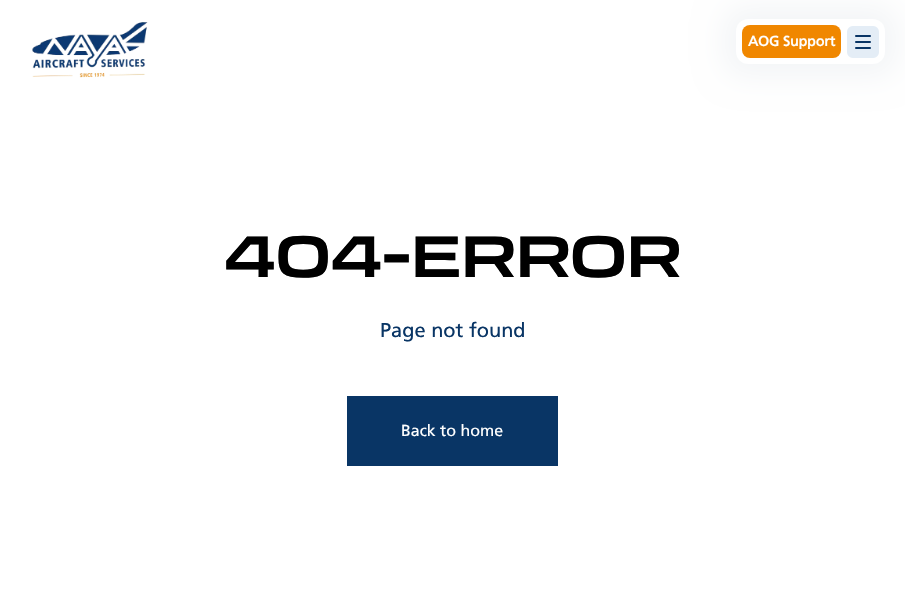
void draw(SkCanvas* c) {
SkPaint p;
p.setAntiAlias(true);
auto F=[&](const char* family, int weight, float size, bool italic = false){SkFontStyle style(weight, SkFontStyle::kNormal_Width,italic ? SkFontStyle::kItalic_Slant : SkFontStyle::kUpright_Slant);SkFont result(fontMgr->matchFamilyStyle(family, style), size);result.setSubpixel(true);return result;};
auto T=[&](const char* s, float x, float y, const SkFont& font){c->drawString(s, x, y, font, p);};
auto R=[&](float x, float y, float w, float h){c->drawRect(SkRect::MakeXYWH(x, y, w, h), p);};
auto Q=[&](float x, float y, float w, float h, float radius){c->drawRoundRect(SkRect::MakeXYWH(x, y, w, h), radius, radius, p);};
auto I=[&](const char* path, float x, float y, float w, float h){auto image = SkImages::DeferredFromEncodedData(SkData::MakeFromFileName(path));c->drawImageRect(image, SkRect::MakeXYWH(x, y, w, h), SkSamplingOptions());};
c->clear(0xffffffff);
I("1.png",32,22,116,56);
p.setColor(0xfff3f5f7);
p.setMaskFilter(SkMaskFilter::MakeBlur(kNormal_SkBlurStyle, 15));
c->drawRoundRect(SkRect::MakeXYWH(724,7,173,69),20,20,p);
p.setMaskFilter(nullptr);
p.setColor(0xffffffff);
Q(736,19,149,45,12);
p.setColor(0xfff08700);
Q(742,25,99,33,8);
auto f1 = F("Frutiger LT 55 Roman",700,14);
p.setColor(0xffffffff);
T("AOG Support",748,46,f1);
I("2.png",847,26,32,32);
auto f2 = F("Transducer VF",700,57);
p.setColor(0xff000000);
T("404-ERROR",224,277,f2);
auto f3 = F("Frutiger LT 55 Roman",400,20);
p.setColor(0xff093565);
T("Page not found",380,337,f3);
R(347,396,211,70);
auto f4 = F("Frutiger LT 55 Roman",400,16);
p.setColor(0xffffffff);
T("Back to home",401,436,f4);
}
